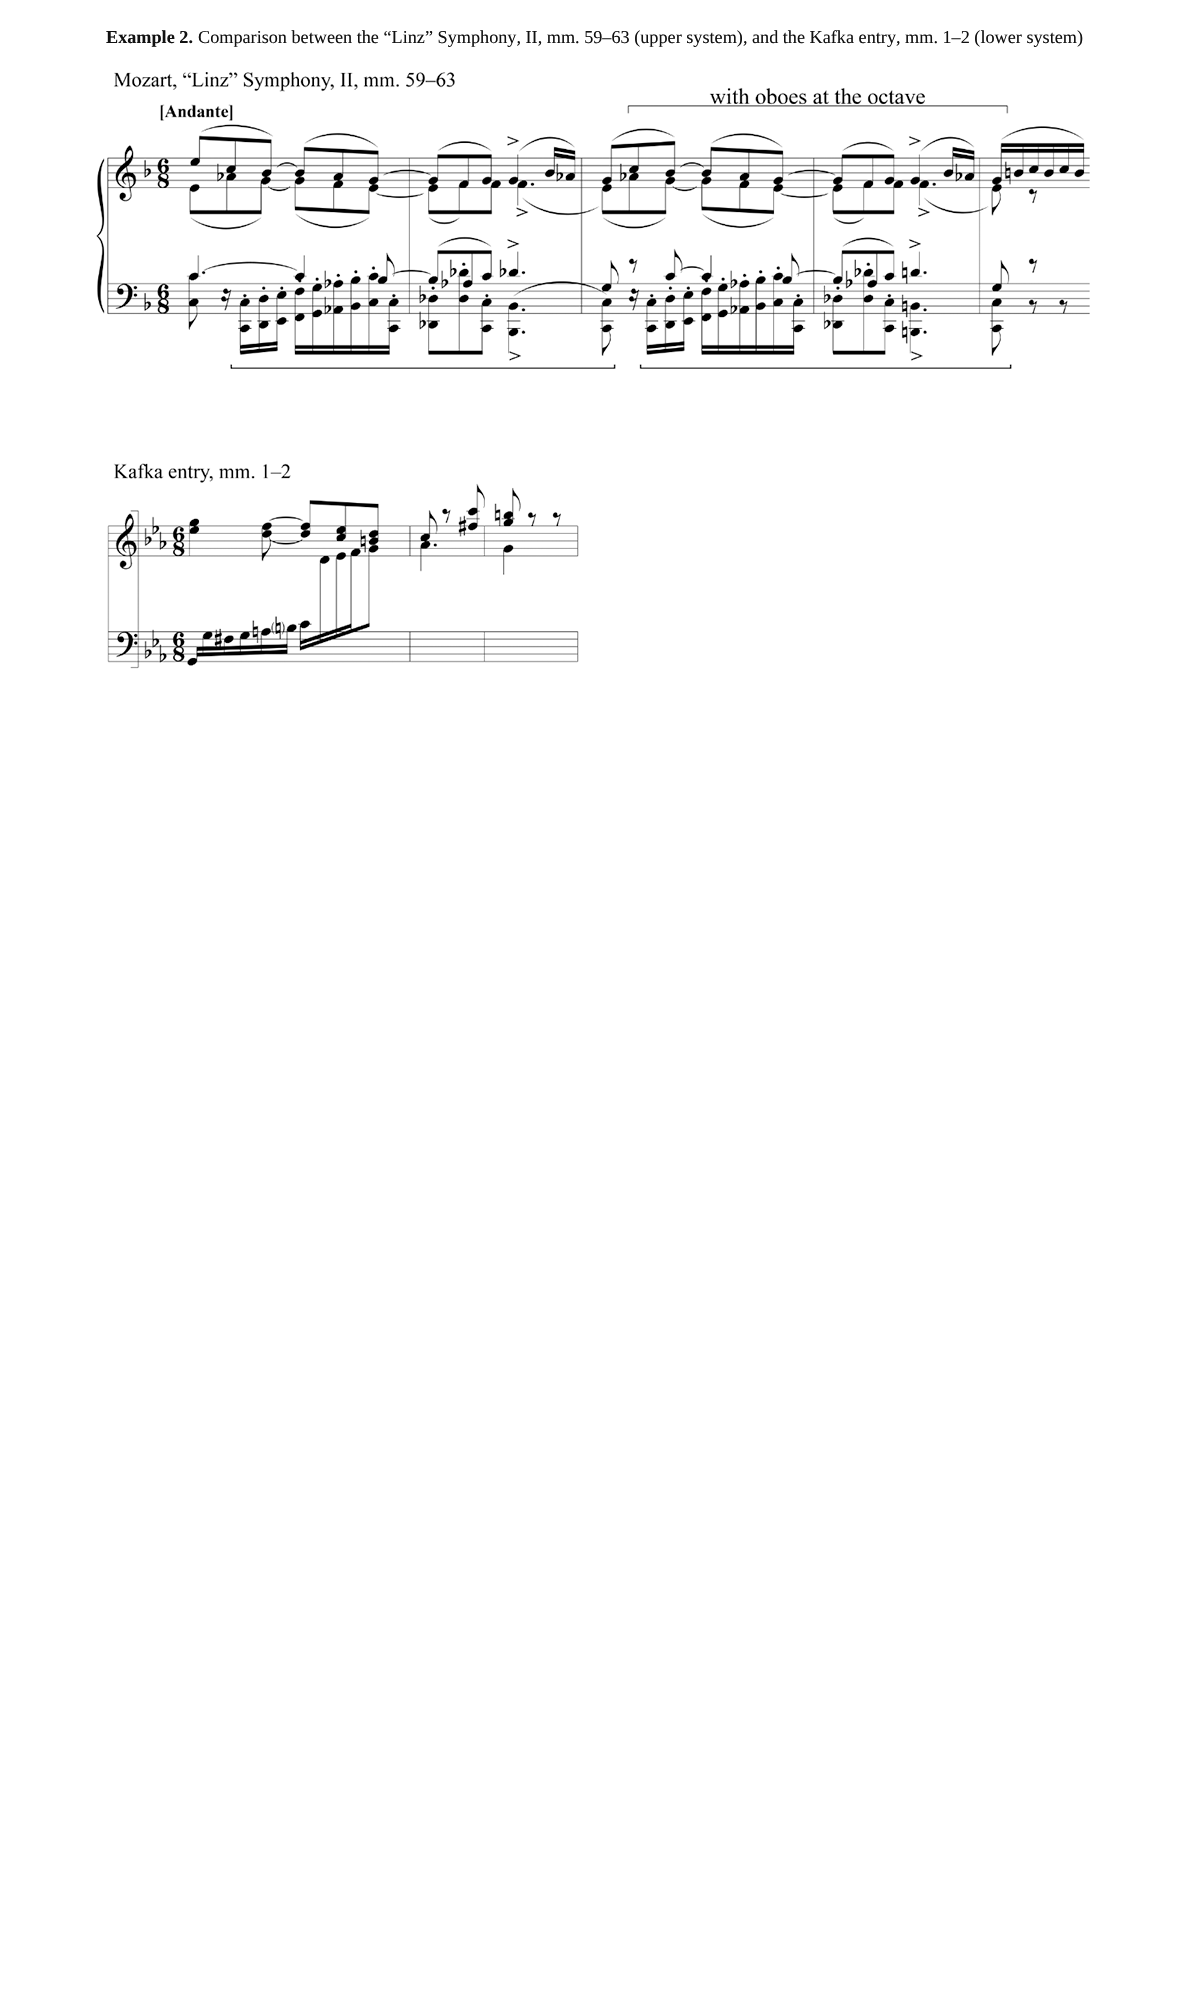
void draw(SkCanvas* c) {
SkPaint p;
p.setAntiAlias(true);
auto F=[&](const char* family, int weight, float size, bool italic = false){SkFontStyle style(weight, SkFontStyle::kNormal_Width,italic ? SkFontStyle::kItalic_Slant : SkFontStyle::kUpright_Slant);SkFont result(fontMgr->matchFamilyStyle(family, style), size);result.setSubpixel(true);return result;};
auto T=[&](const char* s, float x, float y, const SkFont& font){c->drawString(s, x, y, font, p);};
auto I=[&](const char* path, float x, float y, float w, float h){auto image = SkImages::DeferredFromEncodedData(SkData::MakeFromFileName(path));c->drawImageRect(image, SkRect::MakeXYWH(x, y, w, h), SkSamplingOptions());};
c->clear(0xffffffff);
auto f1 = F("Liberation Serif",700,18.2);
p.setColor(0xff111111);
T("Example 2.",106,43,f1);
auto f2 = F("Liberation Serif",400,18.2);
T("Comparison between the “Linz” Symphony, II, mm. 59–63 (upper system), and the Kafka entry, mm. 1–2 (lower system)",198,43,f2);
I("1.png",96,72,994,597);
}
